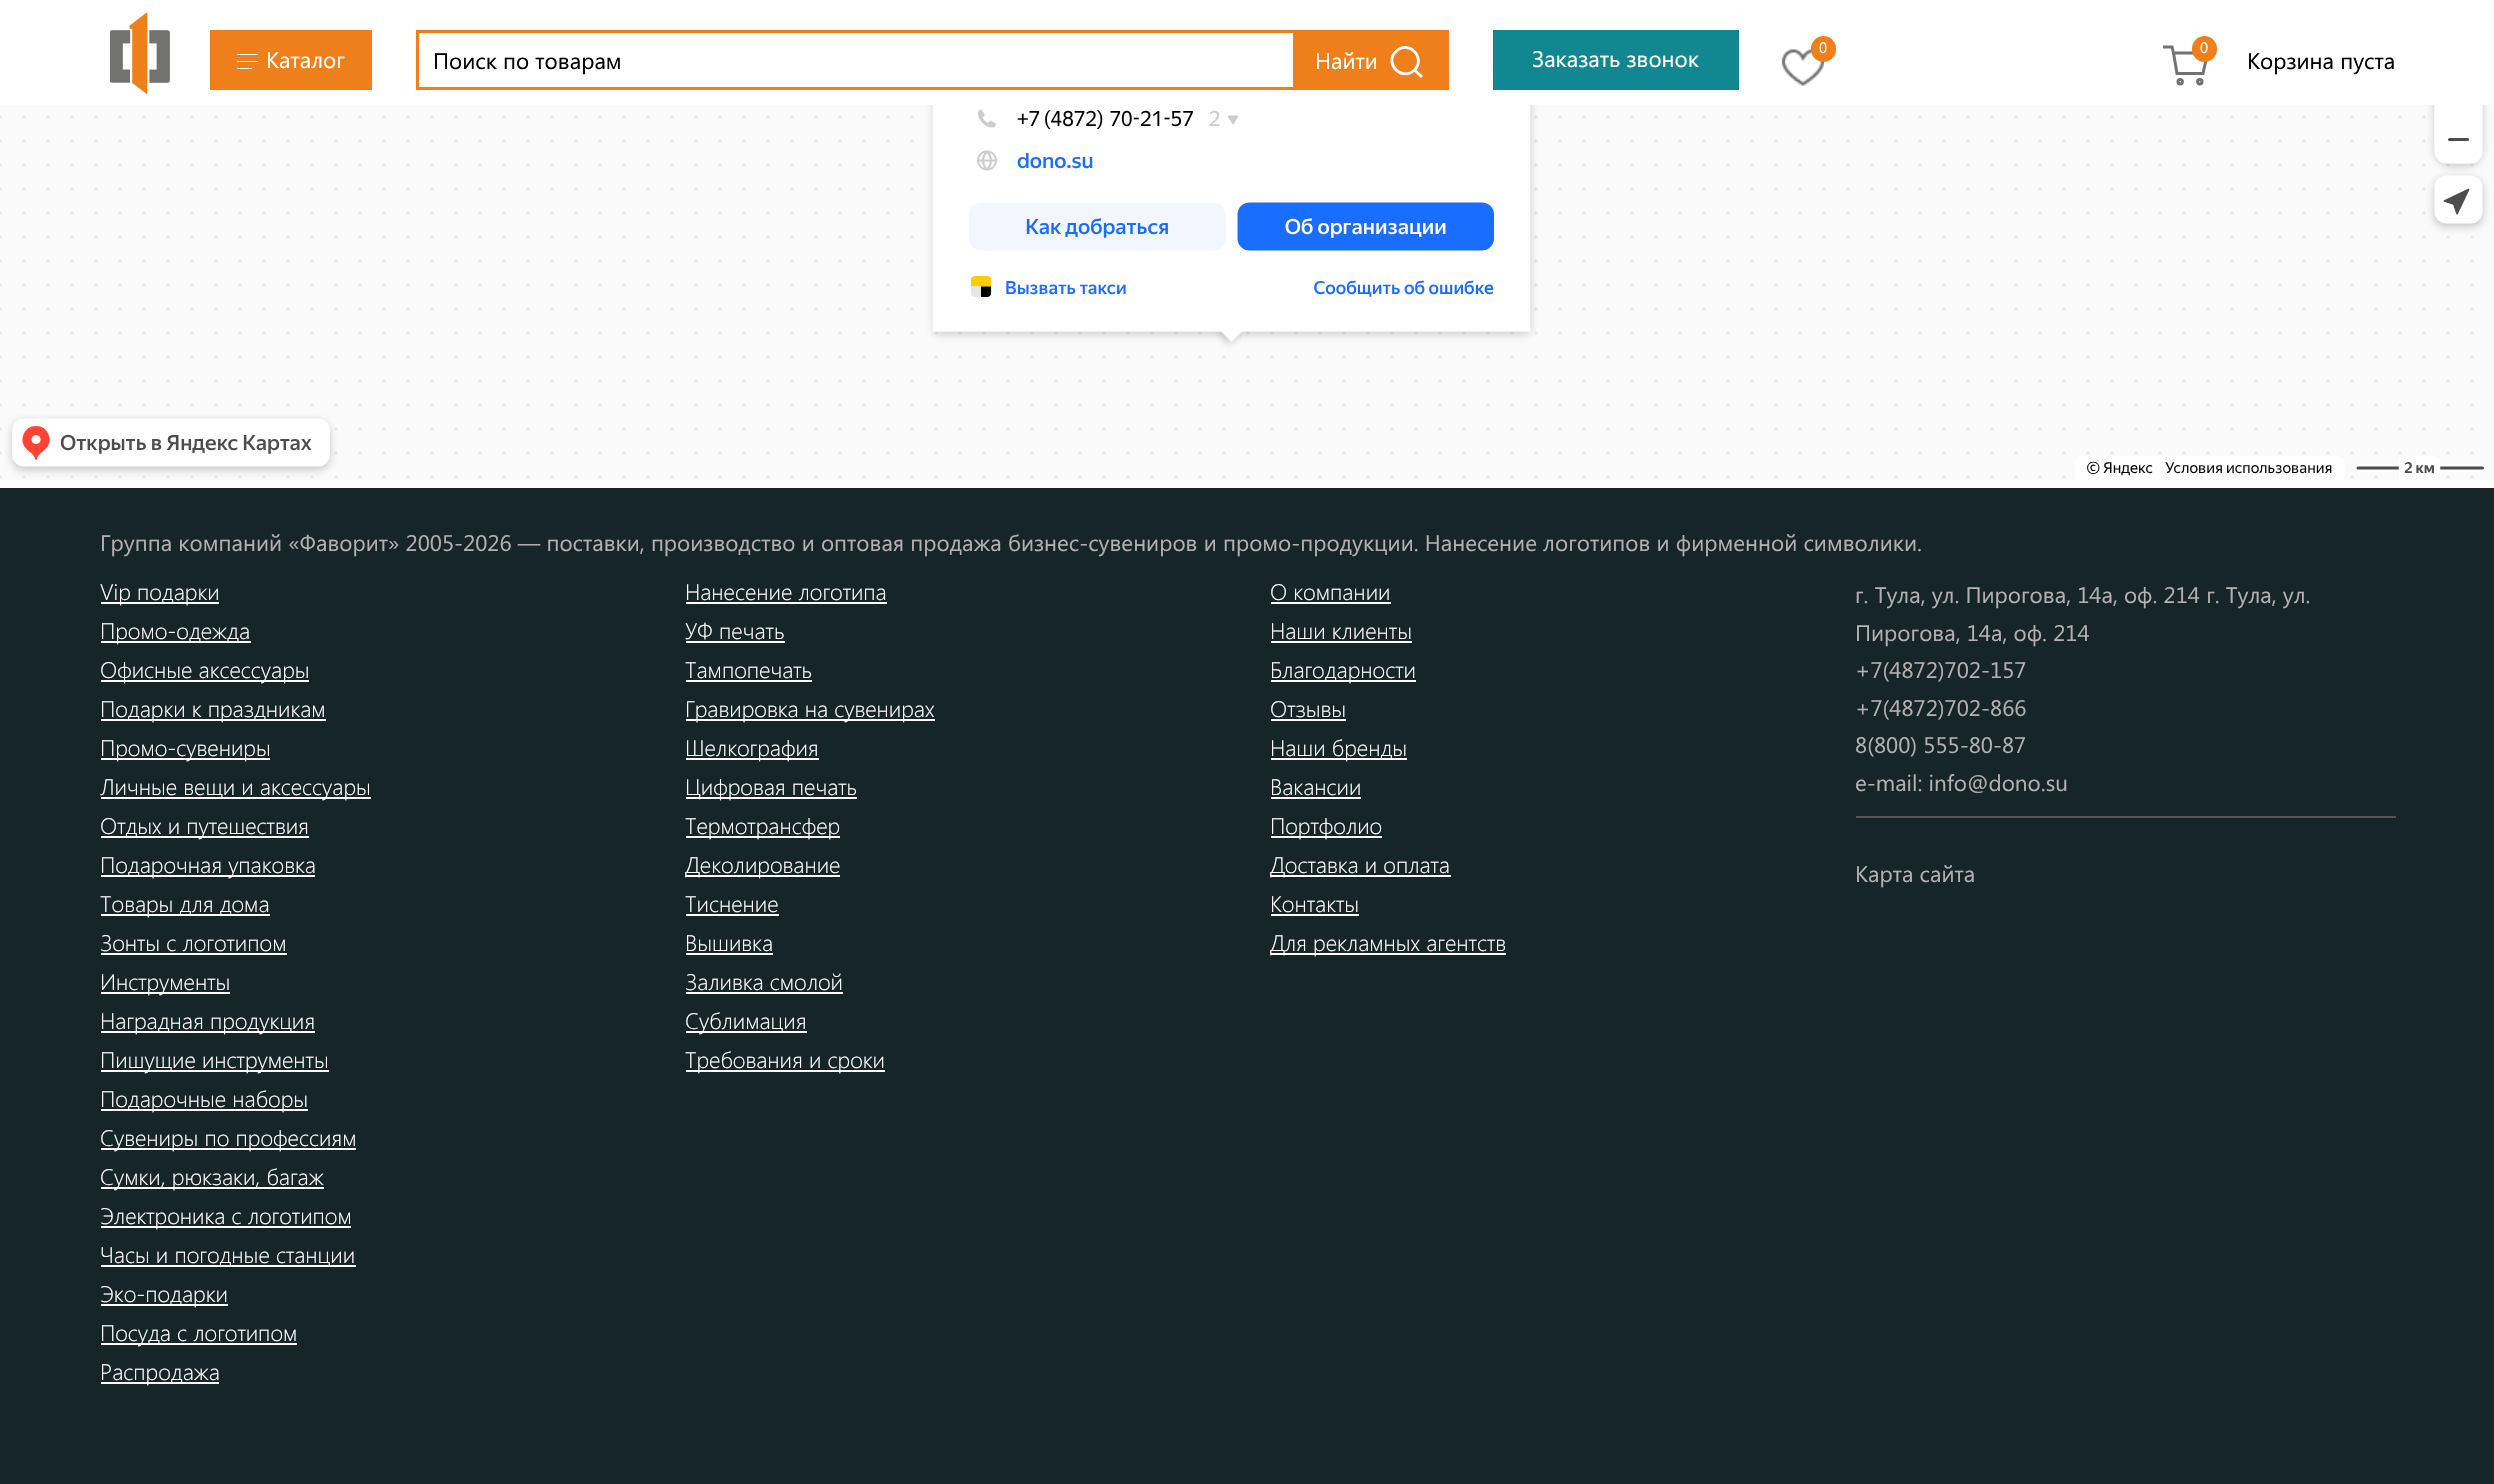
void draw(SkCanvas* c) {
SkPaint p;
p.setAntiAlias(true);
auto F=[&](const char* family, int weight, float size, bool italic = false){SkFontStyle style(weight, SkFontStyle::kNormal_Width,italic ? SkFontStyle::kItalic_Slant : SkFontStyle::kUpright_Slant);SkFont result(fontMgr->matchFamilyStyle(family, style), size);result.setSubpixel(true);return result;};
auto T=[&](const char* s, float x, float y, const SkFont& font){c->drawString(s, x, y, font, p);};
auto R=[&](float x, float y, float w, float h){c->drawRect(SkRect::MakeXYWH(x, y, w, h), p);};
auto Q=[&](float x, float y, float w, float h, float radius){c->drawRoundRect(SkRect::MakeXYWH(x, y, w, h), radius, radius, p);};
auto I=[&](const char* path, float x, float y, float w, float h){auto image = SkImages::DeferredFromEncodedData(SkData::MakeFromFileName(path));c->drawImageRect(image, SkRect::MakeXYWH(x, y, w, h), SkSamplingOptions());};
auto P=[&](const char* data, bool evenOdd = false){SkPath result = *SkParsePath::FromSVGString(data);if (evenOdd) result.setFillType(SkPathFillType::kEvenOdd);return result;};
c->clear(0xffffffff);
I("1.png",110,12,60,82);
p.setColor(0xffef7f1a);
R(210,30,162,60);
p.setColor(0xffffffff);
R(237,54,21,1);
R(237,61,21,1);
R(237,68,15,1);
auto f1 = F("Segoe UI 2",400,22.5);
T("Каталог",266,68,f1);
p.setColor(0xffef7f1a);
R(416,30,1033,60);
p.setColor(0xffffffff);
R(419,33,874,54);
p.setColor(0xff000000);
T("Поиск по товарам",433,69,f1);
p.setColor(0xffffffff);
T("Найти",1315,69,f1);
p.setStroke(true);
p.setStrokeWidth(2.8);
c->drawPath(P("M1396 51.5c12-12.5 30.5 6 18.5 18.5c-12.5 12-31-6.5-18.5-18.5zm18.5 18.5l7.5 7"),p);
p.setStroke(false);
p.setColor(0xff118791);
R(1493,30,246,60);
p.setColor(0xffffffff);
T("Заказать звонок",1532,67,f1);
I("2.png",1781,49,43,37);
p.setColor(0xffef7f1a);
Q(1811,36,25,26,12.5);
auto f2 = F("Segoe UI 2",400,15);
p.setColor(0xffffffff);
T("0",1819,53,f2);
p.setStroke(true);
p.setStrokeWidth(3);
p.setColor(0xff727271);
c->drawPath(P("M2163 47h9l1.5 6m0 0l3.5 20.5h26l4.5-20.5z"),p);
p.setStroke(false);
p.setColor(0xffef7f1a);
Q(2192,36,25,26,12.5);
p.setColor(0xffffffff);
T("0",2200,53,f2);
p.setStroke(true);
p.setColor(0xff727271);
c->drawCircle(2180.2,81.8,2.2,p);
c->drawCircle(2199.8,81.8,2.2,p);
p.setStroke(false);
p.setColor(0xff000000);
T("Корзина пуста",2247,69,f1);
I("3.png",0,105,2494,375);
p.setColor(0xff152528);
R(0,488,2494,996);
auto f3 = F("Segoe UI",400,22.5);
p.setColor(0xffb1b1b1);
T("Группа компаний «Фаворит» 2005-2026 — поставки, производство и оптовая продажа бизнес-сувениров и промо-продукции. Нанесение логотипов и фирменной символики.",100,551,f3);
p.setColor(0xffffffff);
R(101,602,118,2);
auto f4 = F("Segoe UI",300,22.5);
T("Vip подарки",100,600,f4);
R(101,641,150,2);
T("Промо-одежда",100,639,f4);
R(101,680,208,2);
T("Офисные аксессуары",100,678,f4);
R(101,719,225,2);
T("Подарки к праздникам",100,717,f4);
R(101,758,169,2);
T("Промо-сувениры",100,756,f4);
R(101,797,270,2);
T("Личные вещи и аксессуары",100,795,f4);
R(101,836,208,2);
T("Отдых и путешествия",100,834,f4);
R(101,875,214,2);
T("Подарочная упаковка",100,873,f4);
R(101,914,169,2);
T("Товары для дома",100,912,f4);
T("Зонты с логотипом",100,951,f4);
R(101,953,186,2);
R(101,992,129,2);
T("Инструменты",100,990,f4);
R(101,1031,214,2);
T("Наградная продукция",100,1029,f4);
R(101,1070,228,2);
T("Пишущие инструменты",100,1068,f4);
R(101,1109,207,2);
T("Подарочные наборы",100,1107,f4);
R(101,1148,255,2);
T("Сувениры по профессиям",100,1146,f4);
R(101,1187,223,2);
T("Сумки, рюкзаки, багаж",100,1185,f4);
R(101,1226,250,2);
T("Электроника с логотипом",100,1224,f4);
R(101,1265,255,2);
T("Часы и погодные станции",100,1263,f4);
R(101,1304,127,2);
T("Эко-подарки",100,1302,f4);
R(101,1343,196,2);
T("Посуда с логотипом",100,1341,f4);
R(101,1382,118,2);
T("Распродажа",100,1380,f4);
T("Нанесение логотипа",685,600,f4);
R(686,602,201,2);
T("УФ печать",685,639,f4);
R(686,641,99,2);
T("Тампопечать",685,678,f4);
R(686,680,126,2);
R(686,719,249,2);
T("Гравировка на сувенирах",685,717,f4);
R(686,758,133,2);
T("Шелкография",685,756,f4);
R(686,797,171,2);
T("Цифровая печать",685,795,f4);
R(686,836,154,2);
T("Термотрансфер",685,834,f4);
R(686,875,154,2);
T("Деколирование",685,873,f4);
T("Тиснение",685,912,f4);
R(686,914,93,2);
T("Вышивка",685,951,f4);
R(686,953,87,2);
T("Заливка смолой",685,990,f4);
R(686,992,157,2);
R(686,1031,121,2);
T("Сублимация",685,1029,f4);
R(686,1070,199,2);
T("Требования и сроки",685,1068,f4);
T("О компании",1270,600,f4);
R(1271,602,120,2);
T("Наши клиенты",1270,639,f4);
R(1271,641,141,2);
R(1271,680,145,2);
T("Благодарности",1270,678,f4);
T("Отзывы",1270,717,f4);
R(1271,719,75,2);
R(1271,758,136,2);
T("Наши бренды",1270,756,f4);
T("Вакансии",1270,795,f4);
R(1271,797,90,2);
R(1271,836,111,2);
T("Портфолио",1270,834,f4);
R(1271,875,180,2);
T("Доставка и оплата",1270,873,f4);
T("Контакты",1270,912,f4);
R(1271,914,88,2);
R(1271,953,235,2);
T("Для рекламных агентств",1270,951,f4);
p.setColor(0xffb1b1b1);
T("г. Тула, ул. Пирогова, 14а, оф. 214 г. Тула, ул.",1855,603,f3);
T("Пирогова, 14а, оф. 214",1855,641,f3);
T("+7(4872)702-157",1855,678,f3);
T("+7(4872)702-866",1855,716,f3);
T("8(800) 555-80-87",1855,753,f3);
T("e-mail: info@dono.su",1855,791,f3);
p.setColor(0xff555555);
R(1856,816,540,2);
p.setColor(0xffb1b1b1);
T("Карта сайта",1855,882,f3);
}
